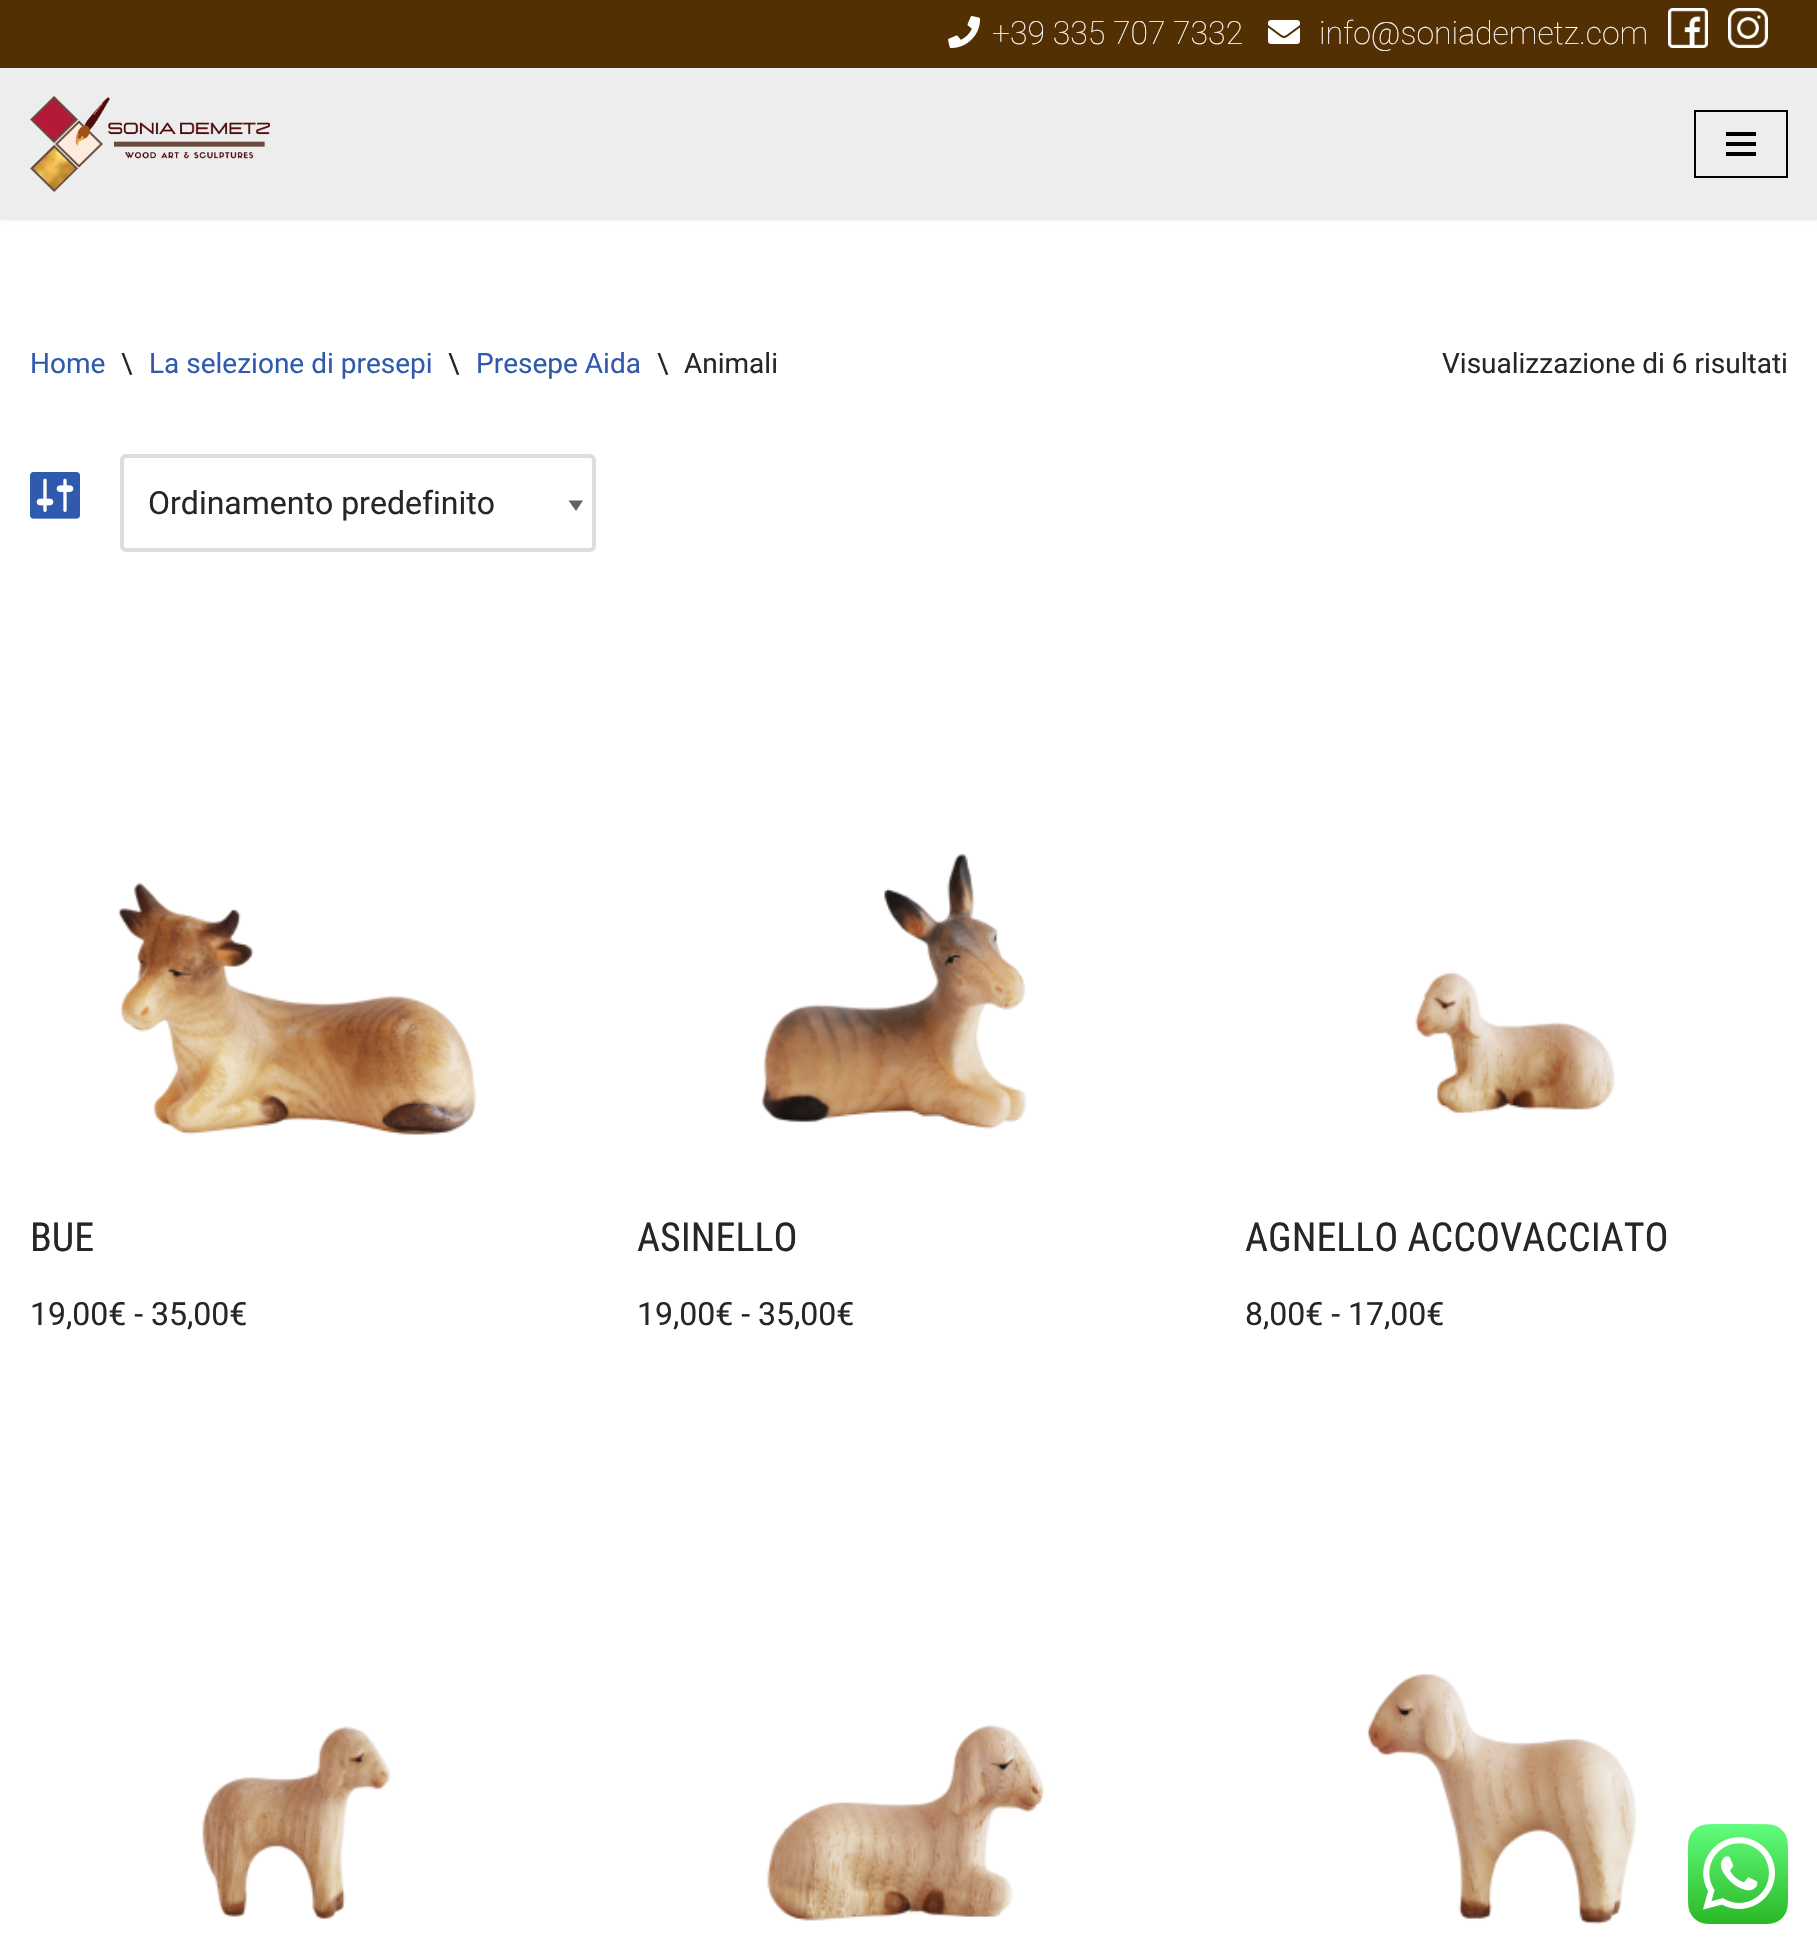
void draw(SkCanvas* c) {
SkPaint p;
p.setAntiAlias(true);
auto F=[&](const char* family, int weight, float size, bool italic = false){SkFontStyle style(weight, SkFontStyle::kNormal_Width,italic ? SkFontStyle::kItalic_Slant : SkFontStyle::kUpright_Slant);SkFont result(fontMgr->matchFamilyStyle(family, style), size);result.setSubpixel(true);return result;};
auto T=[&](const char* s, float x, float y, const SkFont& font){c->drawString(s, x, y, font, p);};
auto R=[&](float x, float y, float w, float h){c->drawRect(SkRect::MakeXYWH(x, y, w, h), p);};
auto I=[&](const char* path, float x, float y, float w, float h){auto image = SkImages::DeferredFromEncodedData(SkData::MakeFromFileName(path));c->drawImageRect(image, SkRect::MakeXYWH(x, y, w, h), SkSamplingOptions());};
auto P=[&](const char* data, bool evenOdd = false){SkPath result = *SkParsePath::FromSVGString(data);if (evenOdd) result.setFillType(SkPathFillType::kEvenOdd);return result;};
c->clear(0xffffffff);
p.setColor(0x1a000000);
p.setMaskFilter(SkMaskFilter::MakeBlur(kNormal_SkBlurStyle, 3));
c->drawRect(SkRect::MakeXYWH(0,-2,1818,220),p);
p.setMaskFilter(nullptr);
p.setColor(0xff523003);
R(0,0,1817,68);
I("1.png",948,16,33,32);
auto f1 = F("Roboto",100,32);
p.setColor(0xffffffff);
T("+39 335 707 7332",992,44,f1);
I("2.png",1268,20,32,24);
T("info@soniademetz.com",1319,44,f1);
I("3.png",1668,8,40,40);
I("4.png",1728,8,40,40);
p.setColor(0xffededed);
R(0,68,1817,152);
I("5.png",30,96,240,96);
p.setStroke(true);
p.setStrokeWidth(2);
p.setColor(0xff000000);
c->drawRect(SkRect::MakeXYWH(1695,111,92,66),p);
p.setStroke(false);
R(1726,132,30,4);
R(1726,142,30,4);
R(1726,152,30,4);
auto f2 = F("Roboto",400,28);
p.setColor(0xff2f5aae);
T("Home",30,373,f2);
p.setColor(0xff272626);
T("\\",121,373,f2);
p.setColor(0xff2f5aae);
T("La selezione di presepi",149,373,f2);
p.setColor(0xff272626);
T("\\",448,373,f2);
p.setColor(0xff2f5aae);
T("Presepe Aida",476,373,f2);
p.setColor(0xff272626);
T("\\",657,373,f2);
T("Animali",684,373,f2);
T("Visualizzazione di 6 risultati",1442,373,f2);
I("6.png",30,472,50,47);
p.setColor(0xff626262);
c->drawPath(P("M583 500.5l-7 10.5l-7.5-10.5z"),p);
p.setStroke(true);
p.setStrokeWidth(4);
p.setColor(0xffdddddd);
c->drawRoundRect(SkRect::MakeXYWH(122,456,472,94),4,4,p);
auto f3 = F("Roboto",400,32);
p.setStroke(false);
p.setColor(0xff272626);
T("Ordinamento predefinito",148,514,f3);
I("7.png",118,882,359,253);
auto f4 = F("Roboto Condensed",400,40);
T("BUE",30,1251,f4);
T("19,00€ - 35,00€",30,1325,f3);
I("8.png",761,853,266,277);
T("ASINELLO",637,1251,f4);
T("19,00€ - 35,00€",637,1325,f3);
I("9.png",1415,971,200,143);
T("AGNELLO ACCOVACCIATO",1245,1251,f4);
T("8,00€ - 17,00€",1245,1325,f3);
I("10.png",202,1726,189,194);
I("11.png",767,1724,277,197);
I("12.png",1367,1673,270,252);
I("13.png",1688,1824,100,100);
}
